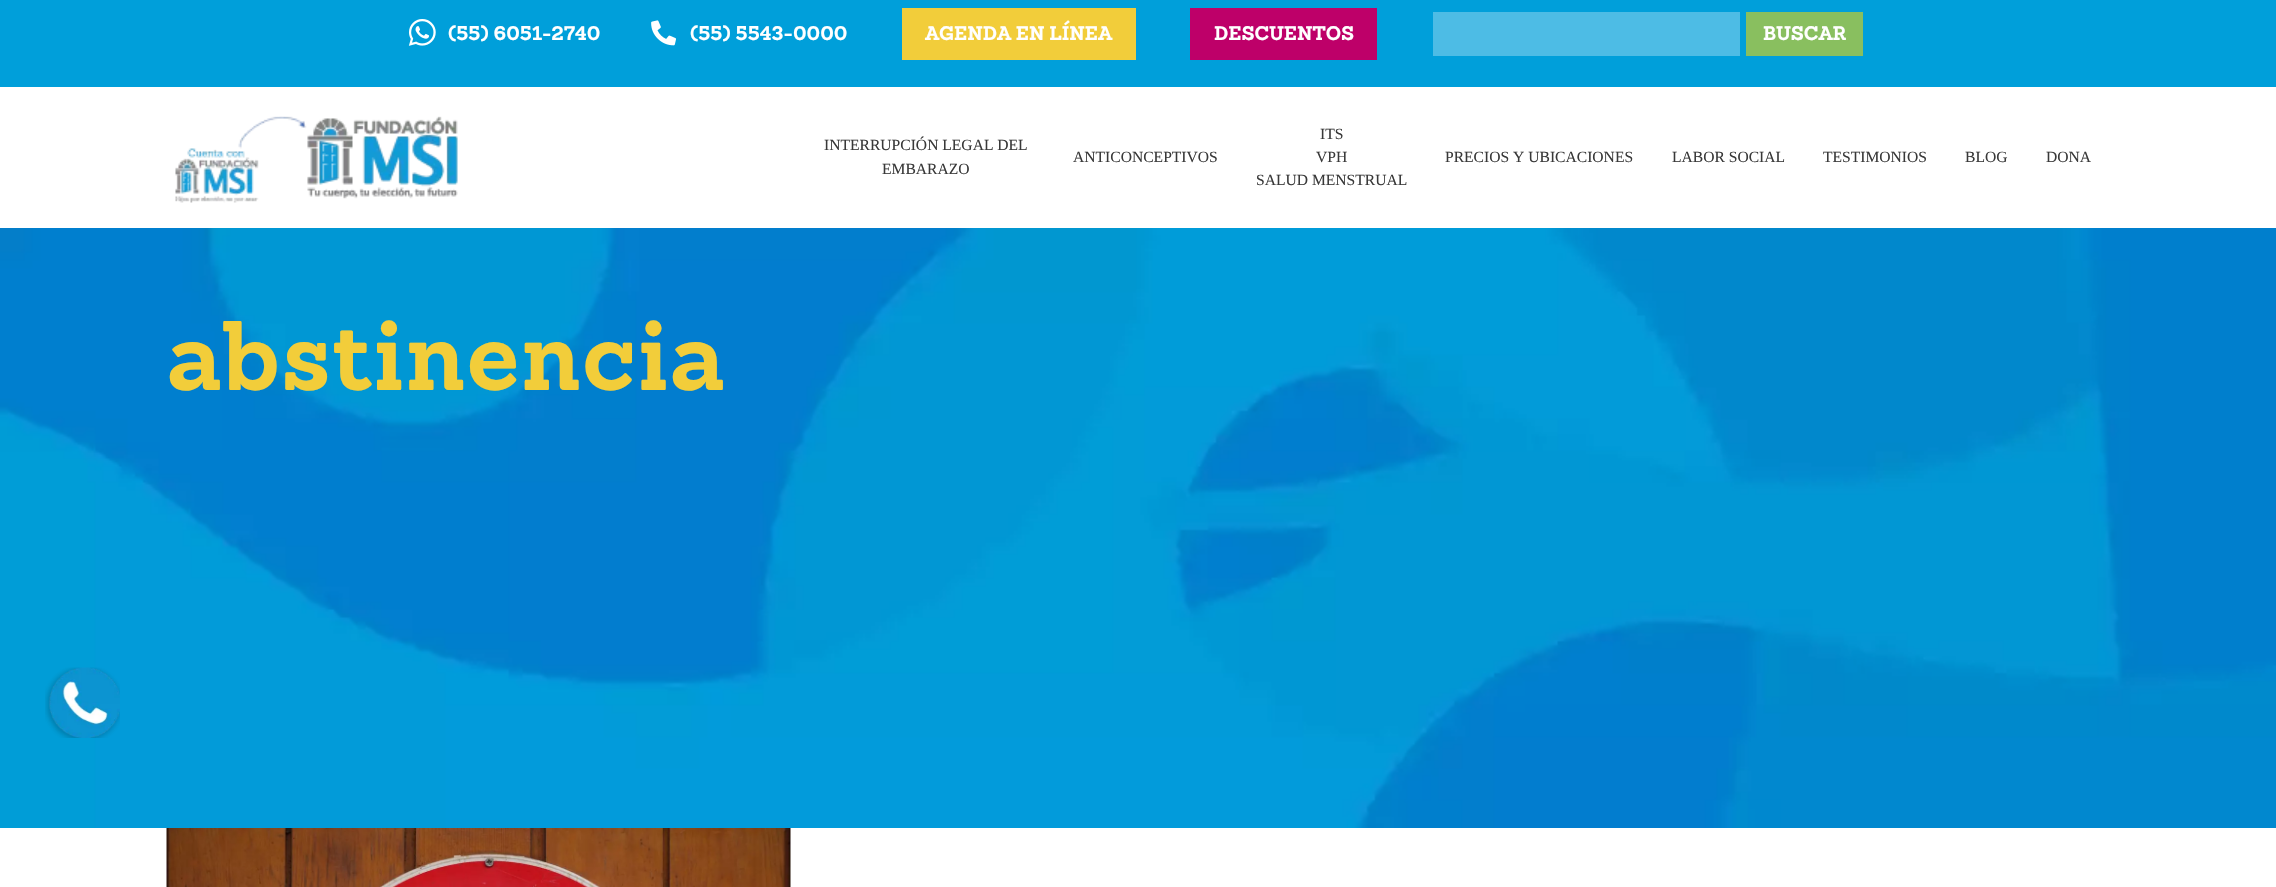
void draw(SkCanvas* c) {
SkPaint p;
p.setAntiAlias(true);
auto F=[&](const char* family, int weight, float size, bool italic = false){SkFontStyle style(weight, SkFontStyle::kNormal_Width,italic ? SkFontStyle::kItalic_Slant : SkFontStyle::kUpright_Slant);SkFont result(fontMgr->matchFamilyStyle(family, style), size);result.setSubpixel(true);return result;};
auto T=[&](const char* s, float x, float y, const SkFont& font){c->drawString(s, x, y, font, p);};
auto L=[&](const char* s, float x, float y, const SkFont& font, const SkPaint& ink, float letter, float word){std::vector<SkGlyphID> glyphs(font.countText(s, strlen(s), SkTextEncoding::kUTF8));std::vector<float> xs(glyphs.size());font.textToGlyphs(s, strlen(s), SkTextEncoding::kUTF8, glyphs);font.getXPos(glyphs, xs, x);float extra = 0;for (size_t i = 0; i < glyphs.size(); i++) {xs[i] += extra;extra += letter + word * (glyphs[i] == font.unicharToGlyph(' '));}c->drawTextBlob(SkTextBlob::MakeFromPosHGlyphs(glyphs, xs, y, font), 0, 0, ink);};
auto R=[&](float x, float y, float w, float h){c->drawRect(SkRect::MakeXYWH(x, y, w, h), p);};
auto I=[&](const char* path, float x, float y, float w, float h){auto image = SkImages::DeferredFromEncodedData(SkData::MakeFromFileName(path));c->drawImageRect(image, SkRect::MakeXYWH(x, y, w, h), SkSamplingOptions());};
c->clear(0xffffffff);
p.setColor(0xff009fda);
R(0,0,2276,87);
I("1.png",408,19,28,27);
auto f1 = F("Sanchez",700,19.25);
p.setColor(0xffffffff);
T("(55) 6051-2740",448,40,f1);
I("2.png",651,20,25,26);
T("(55) 5543-0000",690,40,f1);
p.setColor(0xfff2cd3a);
R(902,8,234,52);
p.setColor(0xffffffff);
T("AGENDA EN LÍNEA",925,40,f1);
p.setColor(0xffbe0069);
R(1190,8,187,52);
p.setColor(0xffffffff);
T("DESCUENTOS",1214,40,f1);
p.setColor(0xff4dbce5);
R(1433,12,307,44);
p.setColor(0xff89bf5f);
R(1746,12,117,44);
p.setColor(0xffffffff);
T("BUSCAR",1763,40,f1);
I("3.png",175,116,283,87);
auto f2 = F("Liberation Serif",400,15.6);
p.setColor(0xff393939);
T("INTERRUPCIÓN LEGAL DEL",824,150,f2);
T("EMBARAZO",882,174,f2);
T("ANTICONCEPTIVOS",1073,162,f2);
T("ITS",1320,139,f2);
T("VPH",1316,162,f2);
T("SALUD MENSTRUAL",1256,185,f2);
T("PRECIOS Y UBICACIONES",1445,162,f2);
T("LABOR SOCIAL",1672,162,f2);
T("TESTIMONIOS",1823,162,f2);
T("BLOG",1965,162,f2);
T("DONA",2046,162,f2);
I("4.png",0,228,2276,600);
auto f3 = F("Sanchez",700,96);
p.setColor(0xfff2cd3a);
L("abstinencia",167,390,f3,p,1.5,0);
I("5.png",166,828,625,59);
I("6.png",45,667,75,71);
}
